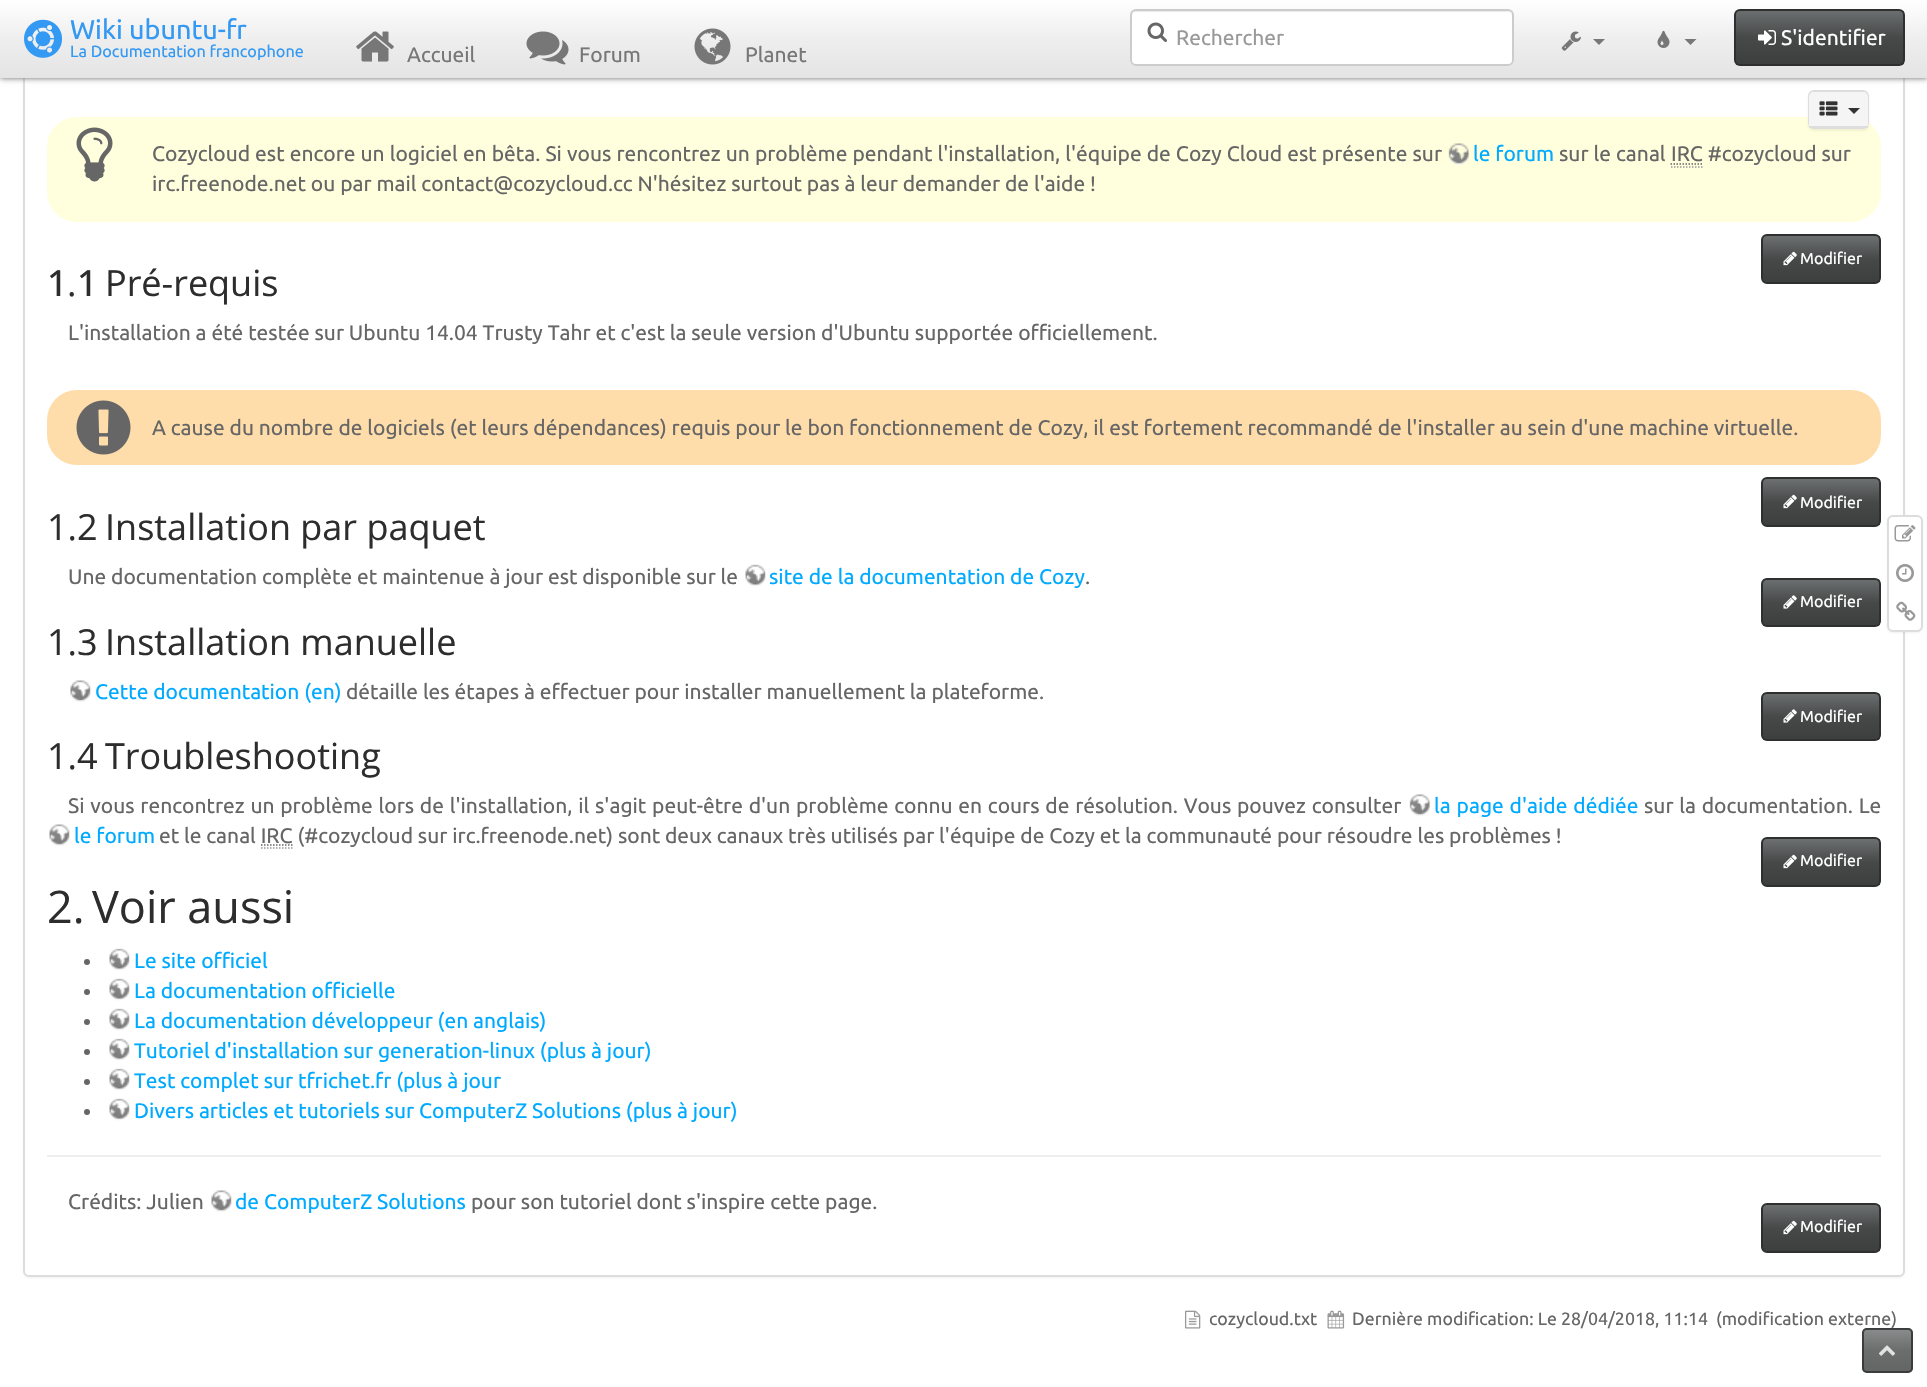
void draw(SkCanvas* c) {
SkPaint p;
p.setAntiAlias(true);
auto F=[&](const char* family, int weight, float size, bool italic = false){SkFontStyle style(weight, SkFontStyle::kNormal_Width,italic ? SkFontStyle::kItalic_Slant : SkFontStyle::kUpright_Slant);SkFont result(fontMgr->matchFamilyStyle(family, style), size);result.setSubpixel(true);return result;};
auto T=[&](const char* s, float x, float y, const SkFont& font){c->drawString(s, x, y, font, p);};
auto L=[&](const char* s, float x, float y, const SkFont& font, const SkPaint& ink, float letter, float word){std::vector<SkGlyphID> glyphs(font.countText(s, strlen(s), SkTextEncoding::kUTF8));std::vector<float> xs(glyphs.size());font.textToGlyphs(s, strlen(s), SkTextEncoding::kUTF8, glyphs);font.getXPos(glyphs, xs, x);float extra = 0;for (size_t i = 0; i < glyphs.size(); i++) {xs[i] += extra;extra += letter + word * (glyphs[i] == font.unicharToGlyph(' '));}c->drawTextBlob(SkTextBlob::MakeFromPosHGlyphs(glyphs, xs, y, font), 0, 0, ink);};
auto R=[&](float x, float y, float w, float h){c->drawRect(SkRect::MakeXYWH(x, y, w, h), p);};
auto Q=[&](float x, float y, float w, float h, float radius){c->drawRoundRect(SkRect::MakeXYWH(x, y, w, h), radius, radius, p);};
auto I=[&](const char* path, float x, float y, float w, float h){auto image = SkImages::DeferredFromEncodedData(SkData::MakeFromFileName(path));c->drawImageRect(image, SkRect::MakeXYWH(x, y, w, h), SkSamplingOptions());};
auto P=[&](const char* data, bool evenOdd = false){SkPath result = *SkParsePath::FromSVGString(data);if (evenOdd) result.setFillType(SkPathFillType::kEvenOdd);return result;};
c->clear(0xffffffff);
p.setColor(0x0d000000);
p.setMaskFilter(SkMaskFilter::MakeBlur(kNormal_SkBlurStyle, 1));
c->drawRoundRect(SkRect::MakeXYWH(23,-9,1882,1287),6,6,p);
p.setMaskFilter(nullptr);
p.setColor(0xffffffff);
c->drawRoundRect(SkRect::MakeXYWH(24,-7,1880,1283),5,5,p);
p.setStroke(true);
p.setStrokeWidth(2);
p.setColor(0xffdddddd);
c->drawRoundRect(SkRect::MakeXYWH(24,-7,1880,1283),5,5,p);
p.setStroke(false);
p.setColor(0xff666666);
p.setMaskFilter(SkMaskFilter::MakeBlur(kNormal_SkBlurStyle, 3));
c->drawRect(SkRect::MakeXYWH(0,0,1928,78),p);
p.setMaskFilter(nullptr);
{
const SkColor colors[] = {0xffffffff,0xffeeeeee,0xffe4e4e4};
const float stops[] = {0,.5,1};
const SkPoint ends[] = {{964,0}, {964,78}};
p.setShader(SkGradientShader::MakeLinear(ends, colors, stops, 3, SkTileMode::kClamp));
p.setAlpha(255);
}
R(0,0,1927,78);
I("1.png",24,19,38,39);
auto f1 = F("Ubuntu",400,27);
p.setShader(nullptr);
p.setColor(0xff3399f3);
T("Wiki ubuntu-fr",70,39,f1);
auto f2 = F("Ubuntu",400,16.25);
T("La Documentation francophone",70,57,f2);
p.setColor(0xffffffff);
Q(1130,9,384,57,6);
p.setColor(0xffececec);
c->drawPath(P("M1136 12h372c2 0 4 2 4 4c0-3-2-5-5-5h-371c-3 0-5 2-5 5c0-2 2-4 5-4z"),p);
p.setStroke(true);
p.setColor(0xffcccccc);
c->drawRoundRect(SkRect::MakeXYWH(1131,10,382,55),5,5,p);
I("2.png",1147,22,20,20);
auto f3 = F("Ubuntu",400,21);
p.setStroke(false);
p.setColor(0xff999999);
T("Rechercher",1176,45,f3);
I("3.png",1561,31,20,20);
p.setColor(0xff777777);
c->drawPath(P("M1593 39h12l-6 6z"),p);
I("4.png",1657,30,13,18);
c->drawPath(P("M1684.5 39h12l-6 6z"),p);
c->save();
c->clipPath(P("M1740 9h159c3.5 0 6 2.5 6 6v45c0 3.5-2.5 6-6 6h-159c-3.5 0-6-2.5-6-6v-45c0-3.5 2.5-6 6-6z"),true);
{
const SkColor colors[] = {0xff6d7070,0xff474949,0xff3d3f3f};
const float stops[] = {0,.5,1};
const SkPoint ends[] = {{1820,10}, {1820,65}};
p.setShader(SkGradientShader::MakeLinear(ends, colors, stops, 3, SkTileMode::kClamp));
p.setAlpha(255);
}
R(1736,11,168,54);
c->restore();
p.setStroke(true);
p.setShader(nullptr);
p.setColor(0xff2e2f2f);
c->drawRoundRect(SkRect::MakeXYWH(1735,10,169,55),5,5,p);
I("5.png",1758,30,18,15);
p.setStroke(false);
p.setColor(0xffffffff);
T("S'identifier",1781,45,f3);
I("6.png",356,31,38,31);
p.setColor(0xff777777);
T("Accueil",407,62,f3);
I("7.png",526,31,43,34);
T("Forum",579,62,f3);
I("8.png",694,28,37,37);
T("Planet",745,62,f3);
p.setColor(0xffffffdd);
Q(47,117,1834,105,30);
p.setColor(0x0d000000);
p.setMaskFilter(SkMaskFilter::MakeBlur(kNormal_SkBlurStyle, 1));
c->drawRoundRect(SkRect::MakeXYWH(1808,92,61,39),6,6,p);
p.setMaskFilter(nullptr);
p.setStroke(true);
p.setColor(0xffdddddd);
c->drawRoundRect(SkRect::MakeXYWH(1809,91,59,37),5,5,p);
p.setStroke(false);
p.setColor(0xfff5f5f5);
c->drawPath(P("M1814 92h49c3 0 5 2 5 5v31h-59v-31c0-3 2-5 5-5z"),p);
p.setColor(0xffdddddd);
R(1809,126,59,2);
I("9.png",1819,101,19,15);
p.setColor(0xff333333);
c->drawPath(P("M1848 108h12l-6 6z"),p);
I("10.png",76,127,37,55);
p.setColor(0xff666666);
L("Cozycloud est encore un logiciel en bêta. Si vous rencontrez un problème pendant l'installation, l'équipe de Cozy Cloud est présente sur",152,161,f3,p,0,.2);
I("11.png",1448,143,22,22);
p.setColor(0xff00aaff);
T("le forum",1473,161,f3);
p.setColor(0xff666666);
L("sur le canal",1559,161,f3,p,0,.2);
p.setStroke(true);
p.setStrokeWidth(1.5);
p.setPathEffect(SkDashPathEffect::Make({{1.5f,1.5f}}, 0));
c->drawPath(P("M1670.5 164h32"),p);
p.setPathEffect(nullptr);
p.setStroke(false);
T("IRC #cozycloud sur",1671,161,f3);
p.setStroke(true);
p.setColor(0xff999999);
p.setPathEffect(SkDashPathEffect::Make({{1.5f,1.5f}}, 0));
c->drawPath(P("M1671 167h31.5"),p);
p.setPathEffect(nullptr);
p.setStroke(false);
p.setColor(0xff666666);
T("irc.freenode.net ou par mail contact@cozycloud.cc N'hésitez surtout pas à leur demander de l'aide !",152,191,f3);
{
const SkColor colors[] = {0xff6d7070,0xff474949,0xff3d3f3f};
const float stops[] = {0,.5,1};
const SkPoint ends[] = {{1821,236}, {1821,282}};
p.setShader(SkGradientShader::MakeLinear(ends, colors, stops, 3, SkTileMode::kClamp));
p.setAlpha(255);
}
R(1763,236,117,46);
p.setStroke(true);
p.setStrokeWidth(2);
p.setShader(nullptr);
p.setColor(0xff2e2f2f);
c->drawRoundRect(SkRect::MakeXYWH(1762,235,118,48),5,5,p);
I("12.png",1783,251,14,15);
auto f4 = F("Ubuntu",400,16);
p.setStroke(false);
p.setColor(0xffffffff);
T("Modifier",1800,264,f4);
auto f5 = F("Open Sans",500,36);
p.setColor(0xff2d2d2d);
T("1 1",47,296,f5);
auto f6 = F("Open Sans",400,36);
T("Pré-requis",105,296,f6);
T(".",67,296,f6);
p.setColor(0xff666666);
T("L'installation a été testée sur Ubuntu 14.04 Trusty Tahr et c'est la seule version d'Ubuntu supportée officiellement.",68,340,f3);
p.setColor(0xffffddaa);
Q(47,390,1834,75,30);
I("13.png",76,400,55,55);
p.setColor(0xff666666);
T("A cause du nombre de logiciels (et leurs dépendances) requis pour le bon fonctionnement de Cozy, il est fortement recommandé de l'installer au sein d'une machine virtuelle.",152,435,f3);
{
const SkColor colors[] = {0xff6d7070,0xff474949,0xff3d3f3f};
const float stops[] = {0,.5,1};
const SkPoint ends[] = {{1821,479}, {1821,525}};
p.setShader(SkGradientShader::MakeLinear(ends, colors, stops, 3, SkTileMode::kClamp));
p.setAlpha(255);
}
R(1763,479,117,46);
p.setStroke(true);
p.setShader(nullptr);
p.setColor(0xff2e2f2f);
c->drawRoundRect(SkRect::MakeXYWH(1762,478,118,48),5,5,p);
I("12.png",1783,494,14,15);
p.setStroke(false);
p.setColor(0xffffffff);
T("Modifier",1800,508,f4);
p.setColor(0xff2d2d2d);
T("1.2",47,540,f6);
T("Installation par paquet",105,540,f6);
p.setColor(0xff666666);
T("Une documentation complète et maintenue à jour est disponible sur le",68,584,f3);
I("14.png",745,564,21,23);
p.setColor(0xff00aaff);
T("site de la documentation de Cozy",769,584,f3);
p.setColor(0xff666666);
T(".",1085,584,f3);
c->save();
c->clipPath(P("M1767 578h108c3.5 0 6 2.5 6 6v37c0 3.5-2.5 6-6 6h-108c-3.5 0-6-2.5-6-6v-37c0-3.5 2.5-6 6-6z"),true);
{
const SkColor colors[] = {0xff6d7070,0xff474949,0xff3d3f3f};
const float stops[] = {0,.5,1};
const SkPoint ends[] = {{1821,579}, {1821,626}};
p.setShader(SkGradientShader::MakeLinear(ends, colors, stops, 3, SkTileMode::kClamp));
p.setAlpha(255);
}
R(1763,579,117,47);
c->restore();
p.setStroke(true);
p.setShader(nullptr);
p.setColor(0xff2e2f2f);
c->drawRoundRect(SkRect::MakeXYWH(1762,579,118,47),5,5,p);
I("15.png",1783,595,14,14);
p.setStroke(false);
p.setColor(0xffffffff);
T("Modifier",1800,607,f4);
p.setColor(0xff2d2d2d);
T("1.3",47,655,f6);
T("Installation manuelle",105,655,f6);
I("16.png",70,680,21,22);
p.setColor(0xff00aaff);
T("Cette documentation (en)",95,699,f3);
p.setColor(0xff666666);
T("détaille les étapes à effectuer pour installer manuellement la plateforme.",346,699,f3);
c->save();
c->clipPath(P("M1767 692h108c3.5 0 6 2.5 6 6v37c0 3.5-2.5 6-6 6h-108c-3.5 0-6-2.5-6-6v-37c0-3.5 2.5-6 6-6z"),true);
{
const SkColor colors[] = {0xff6d7070,0xff474949,0xff3d3f3f};
const float stops[] = {0,.5,1};
const SkPoint ends[] = {{1821,693}, {1821,740}};
p.setShader(SkGradientShader::MakeLinear(ends, colors, stops, 3, SkTileMode::kClamp));
p.setAlpha(255);
}
R(1763,693,117,47);
c->restore();
p.setStroke(true);
p.setShader(nullptr);
p.setColor(0xff2e2f2f);
c->drawRoundRect(SkRect::MakeXYWH(1762,693,118,47),5,5,p);
I("15.png",1783,709,14,14);
p.setStroke(false);
p.setColor(0xffffffff);
T("Modifier",1800,722,f4);
p.setColor(0xff2d2d2d);
T("1.4",47,769,f6);
T("Troubleshooting",105,769,f6);
p.setColor(0xff666666);
L("Si vous rencontrez un problème lors de l'installation, il s'agit peut-être d'un problème connu en cours de résolution. Vous pouvez consulter",68,813,f3,p,0,.9);
I("17.png",1409,794,22,22);
p.setColor(0xff00aaff);
L("la page d'aide dédiée",1434,813,f3,p,0,1);
p.setColor(0xff666666);
L("sur la documentation. Le",1644,813,f3,p,0,.9);
I("16.png",49,824,21,22);
p.setColor(0xff00aaff);
T("le forum",74,843,f3);
p.setColor(0xff666666);
T("et le canal IRC (#cozycloud sur irc.freenode.net) sont deux canaux très utilisés par l'équipe de Cozy et la communauté pour résoudre les problèmes !",159,843,f3);
p.setStroke(true);
p.setStrokeWidth(1.5);
p.setPathEffect(SkDashPathEffect::Make({{1.5f,1.5f}}, 0));
c->drawPath(P("M261 845h32"),p);
p.setPathEffect(nullptr);
p.setColor(0xff999999);
p.setPathEffect(SkDashPathEffect::Make({{1.5f,1.5f}}, 0));
c->drawPath(P("M261 848h31.5"),p);
p.setPathEffect(nullptr);
p.setStroke(false);
{
const SkColor colors[] = {0xff6d7070,0xff474949,0xff3d3f3f};
const float stops[] = {0,.5,1};
const SkPoint ends[] = {{1821,839}, {1821,885}};
p.setShader(SkGradientShader::MakeLinear(ends, colors, stops, 3, SkTileMode::kClamp));
p.setAlpha(255);
}
R(1763,839,117,46);
p.setStroke(true);
p.setStrokeWidth(2);
p.setShader(nullptr);
p.setColor(0xff2e2f2f);
c->drawRoundRect(SkRect::MakeXYWH(1762,838,118,48),5,5,p);
I("12.png",1783,854,14,15);
p.setStroke(false);
p.setColor(0xffffffff);
T("Modifier",1800,866,f4);
auto f7 = F("Open Sans",400,45);
p.setColor(0xff2d2d2d);
T("2.",47,923,f7);
T("Voir aussi",92,923,f7);
p.setColor(0xff666666);
c->drawCircle(87,962,3,p);
I("18.png",109,948,21,23);
p.setColor(0xff00aaff);
T("Le site officiel",134,968,f3);
p.setColor(0xff666666);
c->drawCircle(87,992,3,p);
I("18.png",109,978,21,23);
p.setColor(0xff00aaff);
T("La documentation officielle",134,998,f3);
p.setColor(0xff666666);
c->drawCircle(87,1022,3,p);
I("18.png",109,1008,21,23);
p.setColor(0xff00aaff);
T("La documentation développeur (en anglais)",134,1028,f3);
p.setColor(0xff666666);
c->drawCircle(87,1052,3,p);
I("18.png",109,1038,21,23);
p.setColor(0xff00aaff);
T("Tutoriel d'installation sur generation-linux (plus à jour)",134,1058,f3);
p.setColor(0xff666666);
c->drawCircle(87,1082,3,p);
I("18.png",109,1068,21,23);
p.setColor(0xff00aaff);
T("Test complet sur tfrichet.fr (plus à jour",134,1088,f3);
p.setColor(0xff666666);
c->drawCircle(87,1112,3,p);
I("18.png",109,1098,21,23);
p.setColor(0xff00aaff);
T("Divers articles et tutoriels sur ComputerZ Solutions (plus à jour)",134,1118,f3);
p.setColor(0xffeeeeee);
R(47,1155,1834,2);
p.setColor(0xff666666);
T("Crédits: Julien",68,1209,f3);
I("16.png",211,1190,21,22);
p.setColor(0xff00aaff);
T("de ComputerZ Solutions",235,1209,f3);
p.setColor(0xff666666);
T("pour son tutoriel dont s'inspire cette page.",471,1209,f3);
{
const SkColor colors[] = {0xff6d7070,0xff474949,0xff3d3f3f};
const float stops[] = {0,.5,1};
const SkPoint ends[] = {{1821,1205}, {1821,1251}};
p.setShader(SkGradientShader::MakeLinear(ends, colors, stops, 3, SkTileMode::kClamp));
p.setAlpha(255);
}
R(1763,1205,117,46);
p.setStroke(true);
p.setShader(nullptr);
p.setColor(0xff2e2f2f);
c->drawRoundRect(SkRect::MakeXYWH(1762,1204,118,48),5,5,p);
I("12.png",1783,1220,14,15);
p.setStroke(false);
p.setColor(0xffffffff);
T("Modifier",1800,1232,f4);
p.setColor(0x0d000000);
p.setMaskFilter(SkMaskFilter::MakeBlur(kNormal_SkBlurStyle, 1));
c->drawRoundRect(SkRect::MakeXYWH(1887,516,36,117),6,6,p);
p.setMaskFilter(nullptr);
p.setColor(0xffffffff);
c->drawRoundRect(SkRect::MakeXYWH(1888,516,34,115),5,5,p);
p.setStroke(true);
p.setColor(0xffdddddd);
c->drawRoundRect(SkRect::MakeXYWH(1888,516,34,115),5,5,p);
I("19.png",1894,525,22,17);
I("20.png",1896,564,18,18);
I("21.png",1896,601,20,20);
I("22.png",1185,1310,16,19);
auto f8 = F("Ubuntu",400,17.8);
p.setStroke(false);
p.setColor(0xff666666);
T("cozycloud.txt",1209,1325,f8);
I("23.png",1327,1310,18,19);
T("Dernière modification: Le 28/04/2018, 11:14",1352,1325,f8);
T("(modification externe)",1716,1325,f8);
p.setColor(0xcc474949);
Q(1862,1328,51,45,5);
{
const SkColor colors[] = {0xff8a8d8d,0xff6c6d6d,0xff646565};
const float stops[] = {0,.5,1};
const SkPoint ends[] = {{1887,1329}, {1887,1371}};
p.setShader(SkGradientShader::MakeLinear(ends, colors, stops, 3, SkTileMode::kClamp));
p.setAlpha(255);
}
R(1863,1329,48,42);
p.setStroke(true);
p.setShader(nullptr);
p.setColor(0xcc2e2f2f);
c->drawRoundRect(SkRect::MakeXYWH(1863,1329,49,43),4,4,p);
I("24.png",1879,1345,16,11);
}
